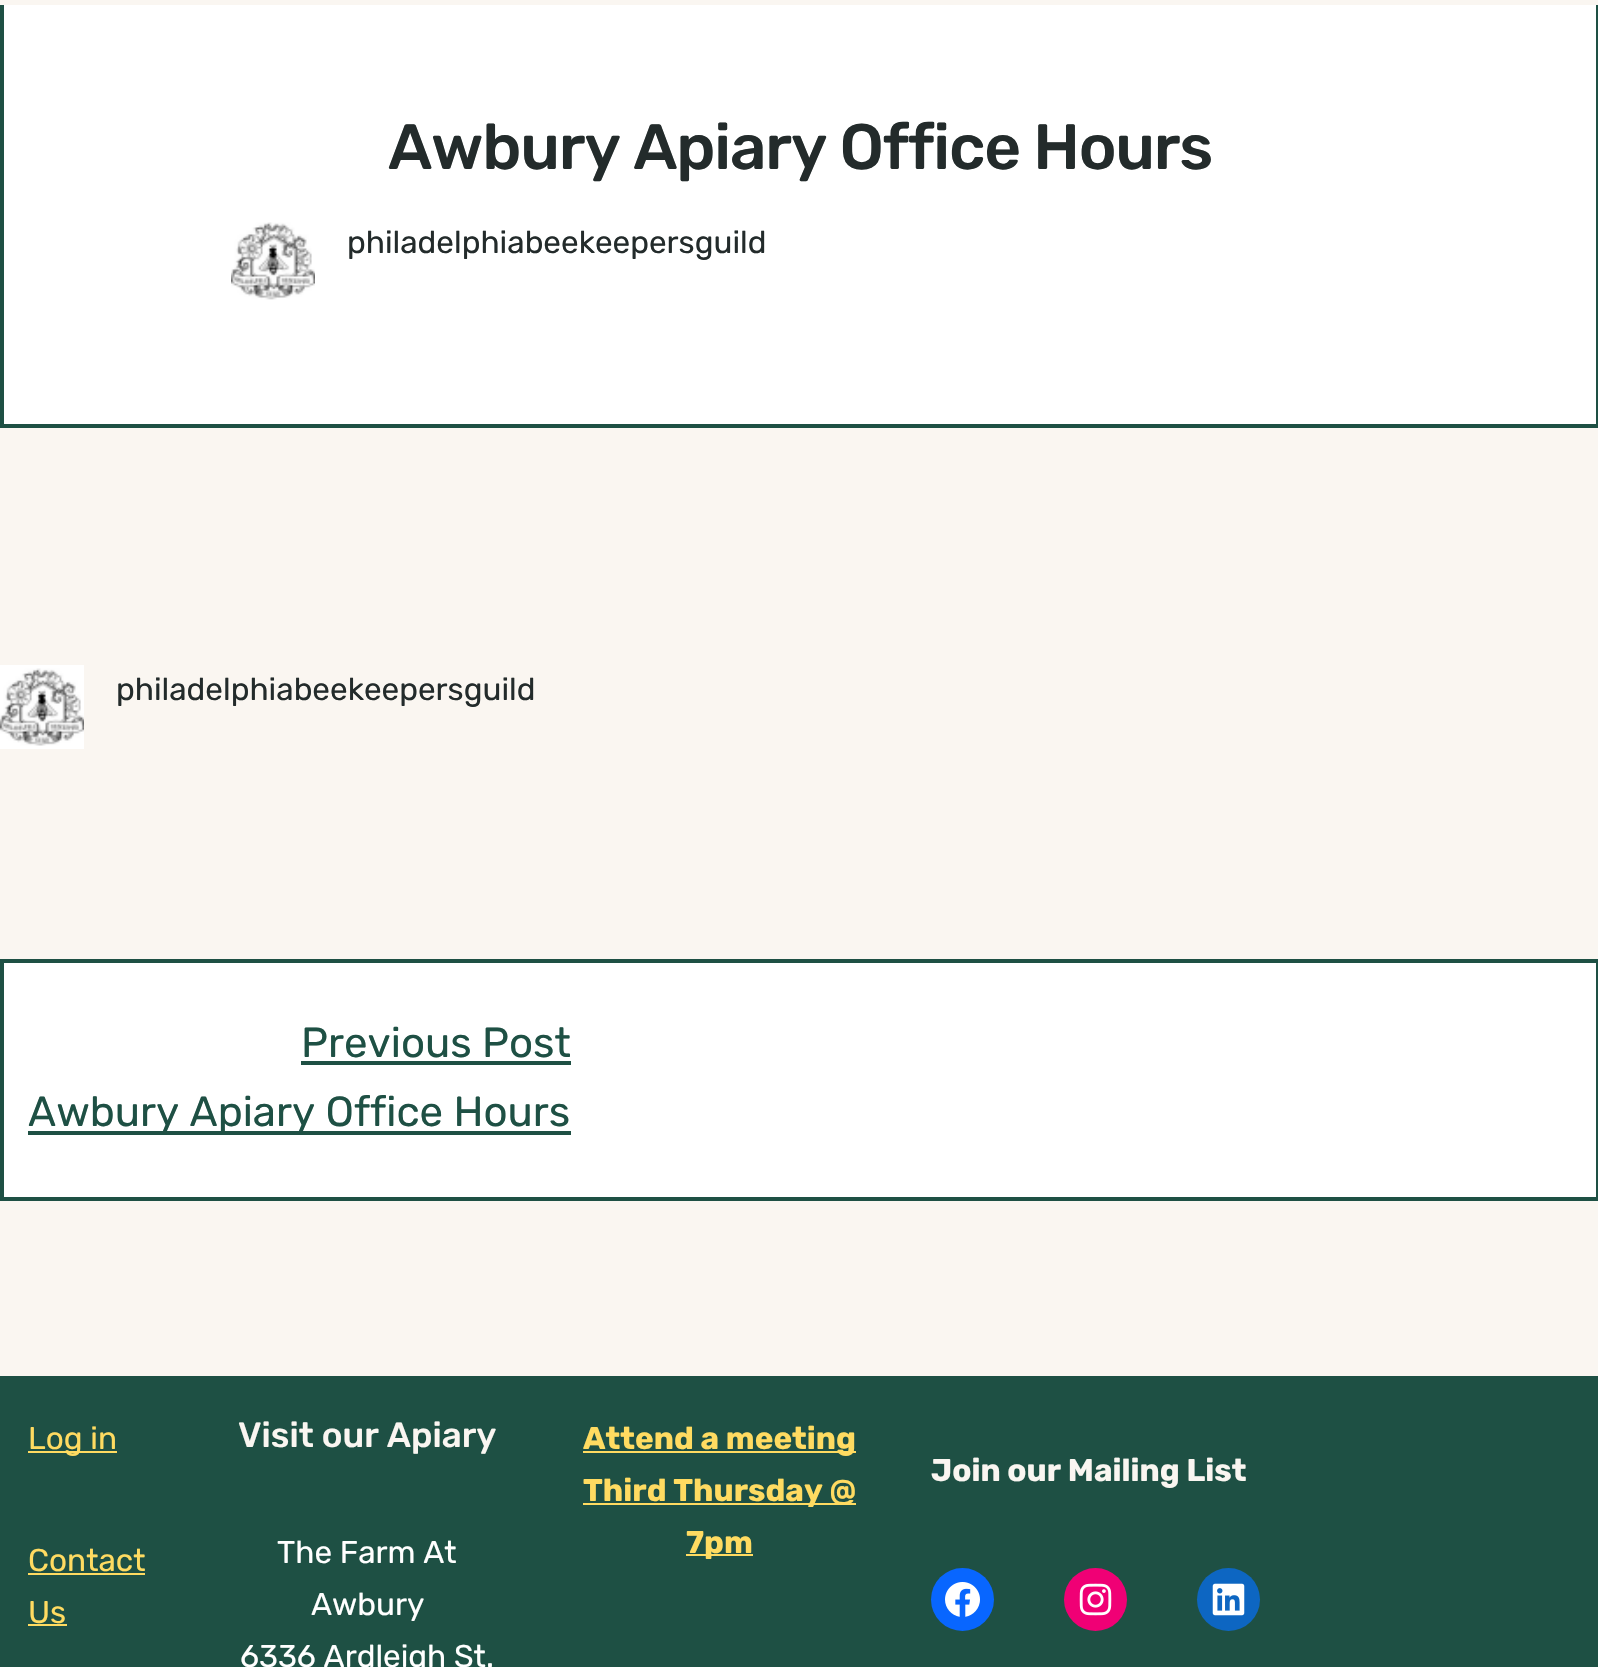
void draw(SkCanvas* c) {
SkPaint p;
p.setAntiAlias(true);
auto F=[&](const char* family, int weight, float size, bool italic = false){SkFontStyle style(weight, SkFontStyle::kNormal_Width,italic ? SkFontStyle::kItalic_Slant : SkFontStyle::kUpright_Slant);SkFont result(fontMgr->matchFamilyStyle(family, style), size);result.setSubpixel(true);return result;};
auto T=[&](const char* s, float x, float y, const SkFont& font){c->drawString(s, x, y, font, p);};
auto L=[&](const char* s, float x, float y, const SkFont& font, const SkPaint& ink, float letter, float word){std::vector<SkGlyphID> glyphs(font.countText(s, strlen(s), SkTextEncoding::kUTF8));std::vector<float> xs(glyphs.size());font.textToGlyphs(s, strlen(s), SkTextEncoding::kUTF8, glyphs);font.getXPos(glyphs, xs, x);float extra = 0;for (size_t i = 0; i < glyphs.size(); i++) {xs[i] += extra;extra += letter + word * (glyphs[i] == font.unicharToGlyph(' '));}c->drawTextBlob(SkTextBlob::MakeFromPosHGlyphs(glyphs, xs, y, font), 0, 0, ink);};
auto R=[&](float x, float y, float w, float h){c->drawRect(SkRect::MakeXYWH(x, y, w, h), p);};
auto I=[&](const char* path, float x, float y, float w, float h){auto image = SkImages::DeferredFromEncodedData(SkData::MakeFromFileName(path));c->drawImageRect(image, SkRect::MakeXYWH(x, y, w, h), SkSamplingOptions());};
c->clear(0xfffaf6f1);
p.setColor(0xffffffff);
R(4,5,1592,419);
p.setColor(0xff1e5044);
R(1596,5,2,422);
R(0,424,1598,4);
R(0,5,4,422);
auto f1 = F("Rubik",500,64);
p.setColor(0xff232b2b);
L("Awbury Apiary Office Hours",388,169,f1,p,-1.25,0);
I("1.png",231,222,84,78);
auto f2 = F("Rubik",400,31.5);
T("philadelphiabeekeepersguild",347,253,f2);
I("2.png",0,665,84,84);
T("philadelphiabeekeepersguild",116,700,f2);
p.setColor(0xffffffff);
c->drawRect(SkRect::MakeXYWH(2,961,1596,238),p);
p.setStroke(true);
p.setStrokeWidth(4);
p.setColor(0xff1e5044);
c->drawRect(SkRect::MakeXYWH(2,961,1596,238),p);
auto f3 = F("Rubik",400,42);
p.setStroke(false);
T("Previous Post",301,1057,f3);
R(301,1061,270,4);
R(28,1131,543,4);
T("Awbury Apiary Office Hours",28,1126,f3);
R(0,1376,1598,291);
p.setColor(0xffffdb61);
R(28,1451,89,2);
T("Log in",28,1449,f2);
T("Contact",28,1571,f2);
R(28,1573,117,2);
T("Us",28,1623,f2);
R(28,1624,39,2);
auto f4 = F("Rubik",500,35);
p.setColor(0xfffaf6f1);
T("Visit our Apiary",238,1447,f4);
p.setColor(0xffffffff);
T("The Farm At",277,1563,f2);
T("Awbury",311,1615,f2);
T("6336 Ardleigh St.",240,1667,f2);
p.setColor(0xffffdb61);
R(583,1451,273,2);
auto f5 = F("Rubik",700,31.5);
T("Attend a meeting",583,1449,f5);
R(583,1503,273,2);
T("Third Thursday @",583,1501,f5);
R(686,1554,67,2);
T("7pm",686,1553,f5);
p.setColor(0xfffaf6f1);
T("Join our Mailing List",931,1481,f5);
p.setColor(0xff0866ff);
c->drawCircle(962.5,1599.5,31.5,p);
I("3.png",945,1582,35,35);
p.setColor(0xfff00075);
c->drawCircle(1095.5,1599.5,31.5,p);
I("4.png",1079,1583,33,33);
p.setColor(0xff0d66c2);
c->drawCircle(1228.5,1599.5,31.5,p);
I("5.png",1212,1583,33,33);
}
